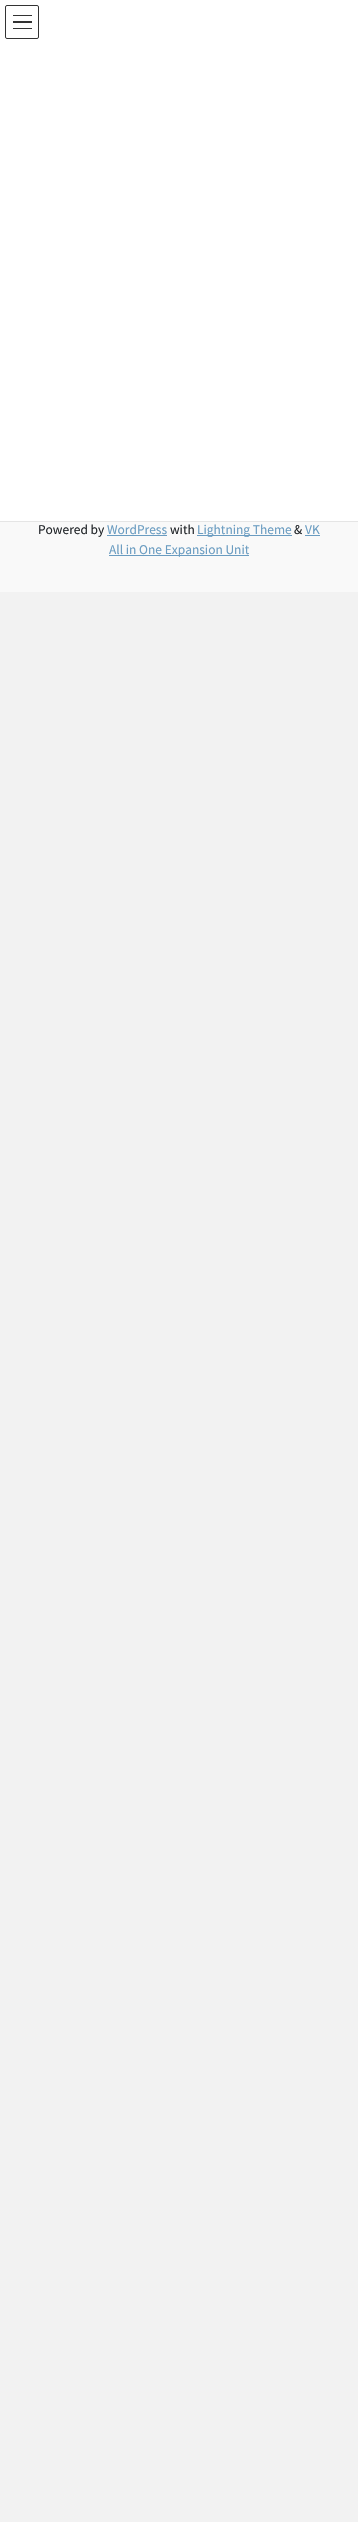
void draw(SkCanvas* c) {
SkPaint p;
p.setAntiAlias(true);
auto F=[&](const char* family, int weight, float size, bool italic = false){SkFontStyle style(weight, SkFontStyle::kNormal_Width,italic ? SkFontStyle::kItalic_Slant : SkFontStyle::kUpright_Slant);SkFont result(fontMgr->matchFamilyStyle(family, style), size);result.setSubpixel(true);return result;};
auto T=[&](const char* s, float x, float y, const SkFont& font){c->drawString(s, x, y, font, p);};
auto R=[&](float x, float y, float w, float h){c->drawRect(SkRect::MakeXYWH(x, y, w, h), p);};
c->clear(0xfff2f2f2);
p.setColor(0xffffffff);
R(0,0,358,521);
p.setColor(0xffe5e5e5);
R(0,521,358,1);
p.setColor(0xff333333);
R(13,15,19,1);
R(13,21,19,2);
R(13,28,19,1);
p.setStroke(true);
p.setStrokeWidth(1);
c->drawRoundRect(SkRect::MakeXYWH(5.5,5.5,33,33),1.5,1.5,p);
p.setStroke(false);
p.setColor(0xfff9f9f9);
R(0,522,358,70);
auto f1 = F("Noto Sans JP",400,12);
p.setColor(0xff212529);
T("Powered by",38,534,f1);
p.setColor(0xff6a9cc1);
T("WordPress",107,534,f1);
R(107,535,60,1);
p.setColor(0xff212529);
T("with",170,534,f1);
p.setColor(0xff6a9cc1);
R(197,535,95,1);
T("Lightning Theme",197,534,f1);
p.setColor(0xff212529);
T("&",294,534,f1);
p.setColor(0xff6a9cc1);
T("VK",305,534,f1);
R(305,535,15,1);
R(109,555,140,1);
T("All in One Expansion Unit",109,554,f1);
}
